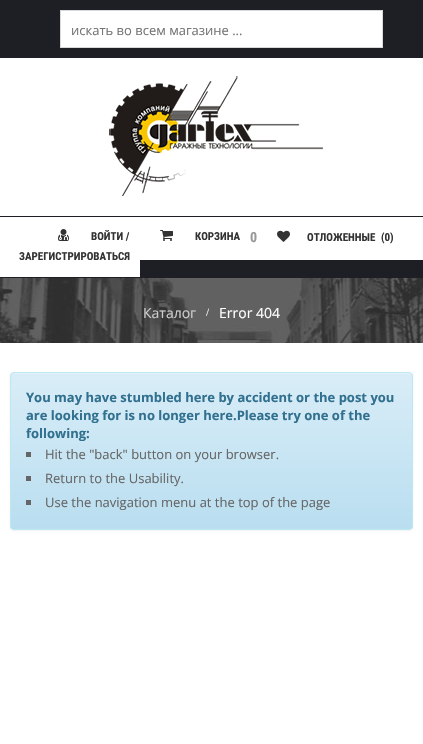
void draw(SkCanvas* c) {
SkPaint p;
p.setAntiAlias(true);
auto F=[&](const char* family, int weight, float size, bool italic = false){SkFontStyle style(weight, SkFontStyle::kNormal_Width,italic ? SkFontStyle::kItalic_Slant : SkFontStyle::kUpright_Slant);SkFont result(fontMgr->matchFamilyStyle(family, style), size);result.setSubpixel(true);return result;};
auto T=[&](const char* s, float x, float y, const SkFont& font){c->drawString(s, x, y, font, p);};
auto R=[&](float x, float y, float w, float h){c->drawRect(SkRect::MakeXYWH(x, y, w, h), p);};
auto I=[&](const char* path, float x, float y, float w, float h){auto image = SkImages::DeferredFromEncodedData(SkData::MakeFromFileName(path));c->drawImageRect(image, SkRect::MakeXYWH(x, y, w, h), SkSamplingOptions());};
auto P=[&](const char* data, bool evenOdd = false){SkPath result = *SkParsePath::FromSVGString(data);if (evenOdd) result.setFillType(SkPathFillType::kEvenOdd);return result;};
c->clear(0xff1d1f24);
p.setColor(0xffffffff);
c->drawRect(SkRect::MakeXYWH(60.5,10.5,322,37),p);
p.setStroke(true);
p.setStrokeWidth(1);
p.setColor(0xffd9d9d9);
c->drawRect(SkRect::MakeXYWH(60.5,10.5,322,37),p);
auto f1 = F("Open Sans",400,13);
p.setStroke(false);
p.setColor(0xff757575);
T("искать во всем магазине ...",71,35,f1);
p.setColor(0xffffffff);
R(0,58,423,158);
I("1.png",109,76,214,120);
R(0,217,140,60);
I("2.png",58,229,11,12);
auto f2 = F("Roboto Condensed",700,11);
p.setColor(0xff333333);
T("ВОЙТИ /",91,240,f2);
T("ЗАРЕГИСТРИРОВАТЬСЯ",19,260,f2);
p.setColor(0xffffffff);
R(140,217,283,43);
I("3.png",160,230,13,11);
p.setColor(0xff333333);
T("КОРЗИНА",195,240,f2);
auto f3 = F("Roboto Condensed",700,14);
p.setColor(0xff999999);
T("0",250,242,f3);
I("4.png",277,230,13,12);
p.setColor(0xff333333);
T("ОТЛОЖЕННЫЕ",307,241,f2);
T("(0)",381,241,f2);
I("5.png",0,278,423,65);
auto f4 = F("Open Sans",400,14);
p.setColor(0xffcccccc);
T("Каталог",143,318,f4);
auto f5 = F("Liberation Serif",400,11);
p.setColor(0xffffffff);
T("/",206,316,f5);
T("Error 404",219,318,f4);
R(0,343,423,401);
p.setColor(0x0d000000);
p.setMaskFilter(SkMaskFilter::MakeBlur(kNormal_SkBlurStyle, 1));
c->drawRoundRect(SkRect::MakeXYWH(10,373,403,158),4,4,p);
p.setMaskFilter(nullptr);
c->save();
c->clipPath(P("M14 372h395c2 0 4 2 4 4v150c0 2-2 4-4 4h-395c-2 0-4-2-4-4v-150c0-2 2-4 4-4z"),true);
{
const SkColor colors[] = {0xffd9edf7,0xffb9def0};
const float stops[] = {0,1};
const SkPoint ends[] = {{212,373}, {212,529}};
p.setShader(SkGradientShader::MakeLinear(ends, colors, stops, 2, SkTileMode::kClamp));
p.setAlpha(255);
}
R(10,373,403,156);
c->restore();
p.setShader(nullptr);
p.setColor(0xffe3f2f9);
c->drawPath(P("M14 374h395c2 0 3 1 3 3c0-2-1-4-3-4h-395l-2 1l-1 3c0-2 1-3 3-3z"),p);
p.setStroke(true);
p.setColor(0xffbce8f1);
c->drawRoundRect(SkRect::MakeXYWH(10.5,372.5,402,157),3.5,3.5,p);
auto f6 = F("Open Sans",700,13);
p.setStroke(false);
p.setColor(0xff31708f);
T("You may have stumbled here by accident or the post you",26,402,f6);
T("are looking for is no longer here.Please try one of the",26,420,f6);
T("following:",26,438,f6);
p.setColor(0xff666666);
R(26,452,5,5);
T("Hit the \"back\" button on your browser.",45,459,f1);
R(26,476,5,5);
T("Return to the Usability.",45,483,f1);
R(26,500,5,5);
T("Use the navigation menu at the top of the page",45,507,f1);
}
